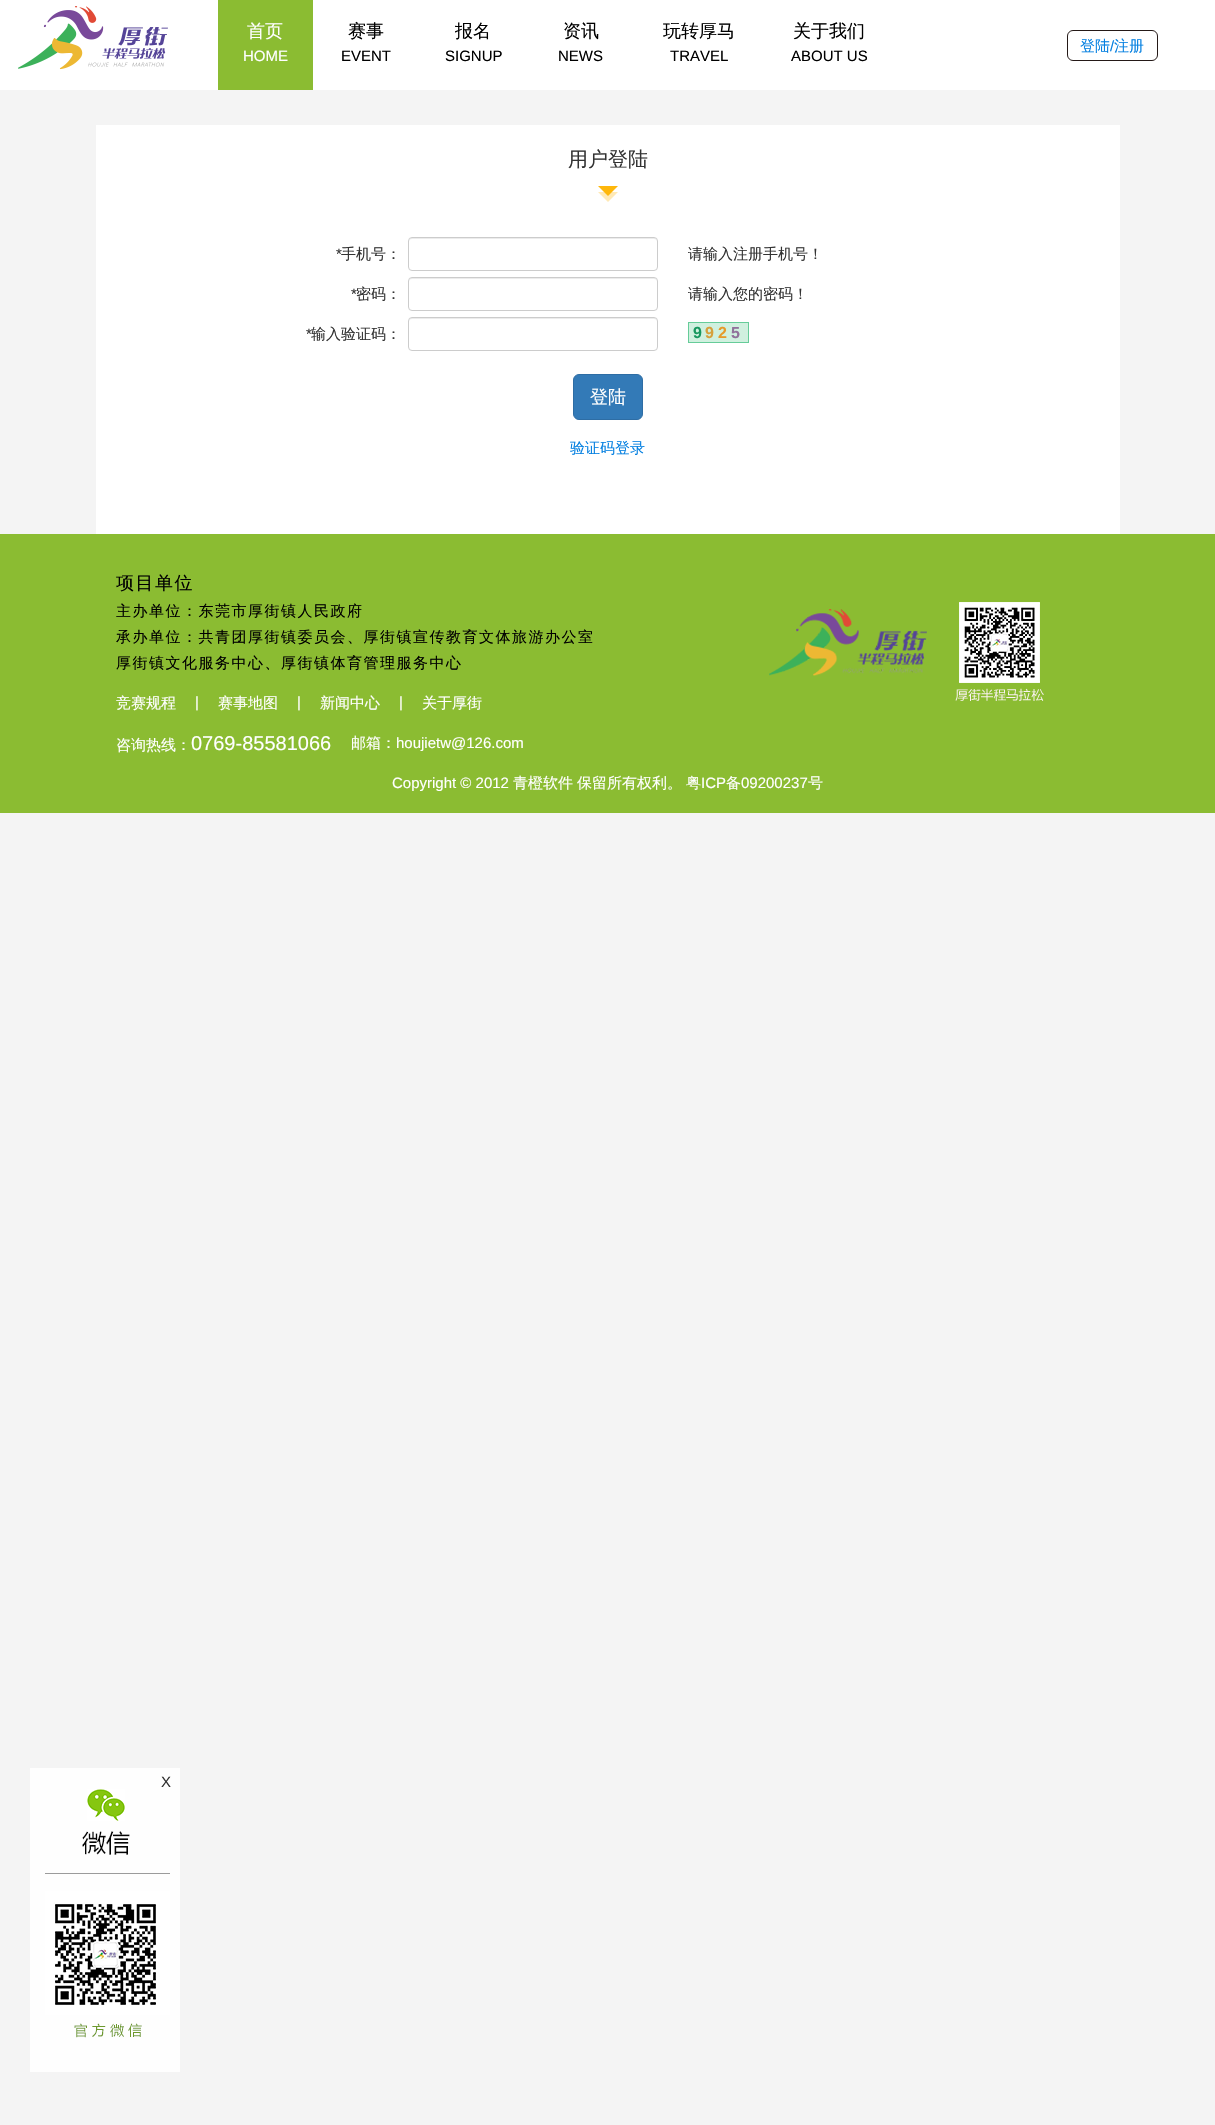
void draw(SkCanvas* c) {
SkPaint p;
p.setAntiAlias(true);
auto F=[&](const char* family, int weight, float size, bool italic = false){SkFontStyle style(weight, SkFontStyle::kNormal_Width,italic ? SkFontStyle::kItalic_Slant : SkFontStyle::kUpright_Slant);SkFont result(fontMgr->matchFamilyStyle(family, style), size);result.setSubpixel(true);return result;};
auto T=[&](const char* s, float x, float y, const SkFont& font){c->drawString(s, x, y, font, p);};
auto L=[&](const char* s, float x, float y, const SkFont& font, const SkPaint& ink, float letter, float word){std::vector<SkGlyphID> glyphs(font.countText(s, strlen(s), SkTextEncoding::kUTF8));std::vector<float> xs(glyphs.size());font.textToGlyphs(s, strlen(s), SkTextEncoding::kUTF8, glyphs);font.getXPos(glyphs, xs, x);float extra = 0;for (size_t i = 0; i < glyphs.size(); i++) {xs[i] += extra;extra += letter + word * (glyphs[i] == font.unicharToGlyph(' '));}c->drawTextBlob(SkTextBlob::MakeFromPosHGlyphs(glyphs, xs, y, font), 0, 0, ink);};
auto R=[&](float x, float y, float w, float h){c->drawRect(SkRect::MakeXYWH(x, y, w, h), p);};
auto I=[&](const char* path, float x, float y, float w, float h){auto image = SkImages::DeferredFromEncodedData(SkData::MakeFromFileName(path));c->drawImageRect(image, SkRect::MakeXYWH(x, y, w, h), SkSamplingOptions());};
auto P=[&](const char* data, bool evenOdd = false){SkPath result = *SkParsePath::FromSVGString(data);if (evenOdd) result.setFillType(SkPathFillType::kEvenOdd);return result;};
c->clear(0xfff4f4f4);
p.setColor(0xffffffff);
R(0,0,1215,90);
I("1.png",18,6,150,64);
p.setColor(0xff8bbc32);
R(218,0,95,90);
auto f1 = F("WenQuanYi Zen Hei",500,18);
p.setColor(0xffffffff);
T("首页",247,37,f1);
auto f2 = F("Liberation Sans",400,15);
T("HOME",243,61,f2);
p.setColor(0xff000000);
T("赛事",348,37,f1);
T("EVENT",341,61,f2);
T("报名",455,37,f1);
T("SIGNUP",445,61,f2);
T("资讯",563,37,f1);
T("NEWS",558,61,f2);
T("玩转厚马",663,37,f1);
T("TRAVEL",670,61,f2);
T("关于我们",793,37,f1);
T("ABOUT US",791,61,f2);
p.setStroke(true);
p.setStrokeWidth(1);
p.setColor(0xff241917);
c->drawRoundRect(SkRect::MakeXYWH(1067.5,30.5,90,30),5.5,5.5,p);
auto f3 = F("WenQuanYi Zen Hei",500,15);
p.setStroke(false);
p.setColor(0xff037fe1);
T("登陆",1080,51,f3);
T("/",1110,51,f2);
T("注册",1114,51,f3);
p.setColor(0xffffffff);
R(96,125,1024,409);
auto f4 = F("WenQuanYi Zen Hei",500,20);
p.setColor(0xff333333);
T("用户登陆",568,166,f4);
I("2.png",598,186,20,16);
T("*",336,259,f2);
T("手机号：",341,259,f3);
p.setColor(0xffececec);
c->drawPath(P("M412 239h242c2 0 3 1 3 3c0-2-1-4-3-4h-242c-2 0-3 2-3 4c0-2 1-3 3-3z"),p);
p.setStroke(true);
p.setColor(0xffcccccc);
c->drawRoundRect(SkRect::MakeXYWH(408.5,237.5,249,33),3.5,3.5,p);
p.setStroke(false);
p.setColor(0xff333333);
T("请输入注册手机号！",688,259,f3);
T("*",351,299,f2);
T("密码：",356,299,f3);
p.setColor(0xffececec);
c->drawPath(P("M412 279h242c2 0 3 1 3 3c0-2-1-4-3-4h-242c-2 0-3 2-3 4c0-2 1-3 3-3z"),p);
p.setStroke(true);
p.setColor(0xffcccccc);
c->drawRoundRect(SkRect::MakeXYWH(408.5,277.5,249,33),3.5,3.5,p);
p.setStroke(false);
p.setColor(0xff333333);
T("请输入您的密码！",688,299,f3);
T("*",306,339,f2);
T("输入验证码：",311,339,f3);
p.setColor(0xffececec);
c->drawPath(P("M412 319h242c2 0 3 1 3 3c0-2-1-4-3-4h-242c-2 0-3 2-3 4c0-2 1-3 3-3z"),p);
p.setStroke(true);
p.setColor(0xffcccccc);
c->drawRoundRect(SkRect::MakeXYWH(408.5,317.5,249,33),3.5,3.5,p);
p.setStroke(false);
p.setColor(0xffd0f0df);
R(689,323,59,19);
auto f5 = F("Liberation Sans",700,16);
p.setColor(0xff18975f);
L("9",693,338,f5,p,4,0);
p.setColor(0xff66cc99);
R(688,322,61,1);
R(688,342,43,1);
R(688,322,1,21);
p.setColor(0xffd6a03c);
L("9",705,338,f5,p,4,0);
p.setColor(0xffe69a2a);
L("2",718,338,f5,p,4,0);
p.setColor(0xff90719b);
L("5",731,338,f5,p,4,0);
p.setColor(0xff66cc99);
R(748,322,1,21);
R(731,342,18,1);
p.setColor(0xff337ab7);
c->drawRoundRect(SkRect::MakeXYWH(573.5,374.5,69,45),5.5,5.5,p);
p.setStroke(true);
p.setColor(0xff2e6da4);
c->drawRoundRect(SkRect::MakeXYWH(573.5,374.5,69,45),5.5,5.5,p);
p.setStroke(false);
p.setColor(0xffffffff);
T("登陆",590,403,f1);
p.setColor(0xff037fe1);
T("验证码登录",570,453,f3);
p.setColor(0xff8bbc32);
R(0,534,1215,279);
p.setColor(0xff000000);
L("项目单位",116,589,f1,p,1.5,0);
L("主办单位：东莞市厚街镇人民政府",116,616,f3,p,1.5,0);
L("承办单位：共青团厚街镇委员会、厚街镇宣传教育文体旅游办公室",116,642,f3,p,1.5,0);
L("厚街镇文化服务中心、厚街镇体育管理服务中心",116,668,f3,p,1.5,0);
p.setColor(0xffffffff);
T("竞赛规程",116,708,f3);
T("|",195,707,f2);
T("赛事地图",218,708,f3);
T("|",297,707,f2);
T("新闻中心",320,708,f3);
T("|",399,707,f2);
T("关于厚街",422,708,f3);
T("咨询热线：",116,750,f3);
auto f6 = F("Liberation Sans",400,20);
T("0769-85581066",191,750,f6);
T("邮箱：",351,748,f3);
T("houjietw@126.com",396,748,f2);
I("3.png",769,602,275,99);
T("Copyright © 2012",392,788,f2);
T("青橙软件",513,788,f3);
T("保留所有权利。",577,788,f3);
T("粤",686,788,f3);
T("ICP",701,788,f2);
T("备",726,788,f3);
T("09200237",741,788,f2);
T("号",808,788,f3);
I("4.png",30,1768,150,304);
p.setColor(0xff333333);
T("X",161,1787,f2);
}
